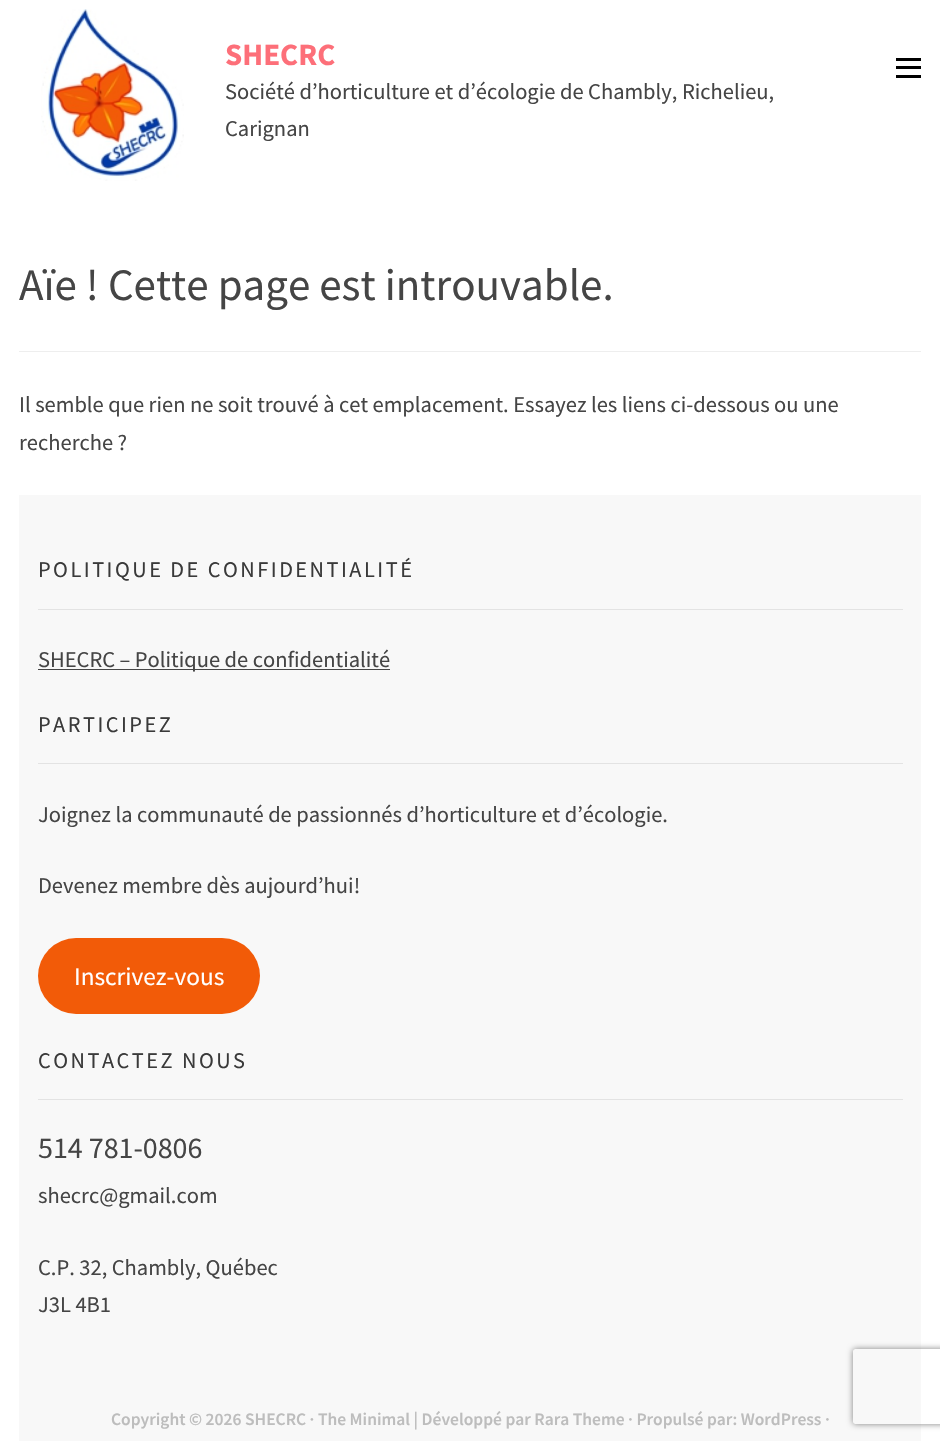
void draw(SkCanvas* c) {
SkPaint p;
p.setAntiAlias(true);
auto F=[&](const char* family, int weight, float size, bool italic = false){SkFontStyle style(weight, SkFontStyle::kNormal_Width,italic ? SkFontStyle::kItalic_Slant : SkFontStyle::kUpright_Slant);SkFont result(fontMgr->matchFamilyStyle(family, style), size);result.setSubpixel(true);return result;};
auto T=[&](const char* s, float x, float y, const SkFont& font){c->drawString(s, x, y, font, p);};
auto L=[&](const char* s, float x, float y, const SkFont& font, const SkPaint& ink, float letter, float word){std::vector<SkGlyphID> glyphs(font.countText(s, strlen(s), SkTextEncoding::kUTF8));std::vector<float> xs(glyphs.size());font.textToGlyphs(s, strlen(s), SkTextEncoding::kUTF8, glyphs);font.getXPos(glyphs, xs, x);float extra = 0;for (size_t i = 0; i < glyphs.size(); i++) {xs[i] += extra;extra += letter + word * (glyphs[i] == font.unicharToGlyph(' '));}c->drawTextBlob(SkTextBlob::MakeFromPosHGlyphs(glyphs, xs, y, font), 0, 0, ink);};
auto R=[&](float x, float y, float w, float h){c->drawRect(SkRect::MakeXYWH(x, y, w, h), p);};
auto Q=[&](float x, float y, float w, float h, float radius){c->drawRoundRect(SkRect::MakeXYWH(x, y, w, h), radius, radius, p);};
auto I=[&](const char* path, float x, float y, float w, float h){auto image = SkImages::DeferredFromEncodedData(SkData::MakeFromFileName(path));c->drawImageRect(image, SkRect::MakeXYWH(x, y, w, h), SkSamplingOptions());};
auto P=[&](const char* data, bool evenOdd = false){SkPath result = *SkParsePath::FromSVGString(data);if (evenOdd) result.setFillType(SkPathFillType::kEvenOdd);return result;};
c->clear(0xffffffff);
I("1.png",41,9,143,172);
auto f1 = F("Source Sans Pro",700,31);
p.setColor(0xfffd6f79);
T("SHECRC",225,65,f1);
auto f2 = F("Source Sans Pro",400,22.5);
p.setColor(0xff454545);
T("Société d’horticulture et d’écologie de Chambly, Richelieu,",225,99,f2);
T("Carignan",225,136,f2);
p.setColor(0xff000000);
R(896,58,25,3);
R(896,66,25,3);
R(896,75,25,3);
p.setColor(0xffeeeeee);
R(19,351,902,1);
auto f3 = F("Source Sans Pro",400,45);
p.setColor(0xff454545);
T("Aïe ! Cette page est introuvable.",19,300,f3);
T("Il semble que rien ne soit trouvé à cet emplacement. Essayez les liens ci-dessous ou une",19,412,f2);
T("recherche ?",19,450,f2);
p.setColor(0xfff8f8f8);
R(19,495,902,946);
p.setColor(0xffe3e3e3);
R(38,609,865,1);
auto f4 = F("Source Sans Pro",400,22.3);
p.setColor(0xff3a3a3a);
L("POLITIQUE DE CONFIDENTIALITÉ",38,577,f4,p,2.5,0);
p.setColor(0xff454545);
R(38,669,352,1);
T("SHECRC – Politique de confidentialité",38,667,f2);
p.setColor(0xffe3e3e3);
R(38,763,865,1);
p.setColor(0xff3a3a3a);
L("PARTICIPEZ",38,732,f4,p,2.5,0);
p.setColor(0xff454545);
T("Joignez la communauté de passionnés d’horticulture et d’écologie.",38,822,f2);
T("Devenez membre dès aujourd’hui!",38,893,f2);
p.setColor(0xfff25b08);
Q(38,938,222,76,38);
auto f5 = F("Source Sans Pro",400,25.25);
p.setColor(0xffffffff);
T("Inscrivez-vous",74,985,f5);
p.setColor(0xffe3e3e3);
R(38,1099,865,1);
p.setColor(0xff3a3a3a);
L("CONTACTEZ NOUS",38,1068,f4,p,2.5,0);
auto f6 = F("Source Sans Pro",400,30);
p.setColor(0xff454545);
T("514 781-0806",38,1158,f6);
T("shecrc@gmail.com",38,1203,f2);
T("C.P. 32, Chambly, Québec",38,1275,f2);
T("J3L 4B1",38,1312,f2);
auto f7 = F("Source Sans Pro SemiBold",600,17.5);
p.setColor(0xffbdbdbd);
T("Copyright © 2026 SHECRC · The Minimal | Développé par Rara Theme · Propulsé par: WordPress ·",111,1425,f7);
c->save();
c->clipPath(P("M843 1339h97v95h-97zm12.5 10h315c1.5 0 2.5 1 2.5 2.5v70c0 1.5-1 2.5-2.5 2.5h-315c-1.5 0-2.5-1-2.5-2.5v-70c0-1.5 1-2.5 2.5-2.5z",true),true);
p.setColor(0xff808080);
p.setMaskFilter(SkMaskFilter::MakeBlur(kNormal_SkBlurStyle, 3));
c->drawRoundRect(SkRect::MakeXYWH(853,1349,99,75),2.5,2.5,p);
p.setMaskFilter(nullptr);
c->restore();
}
